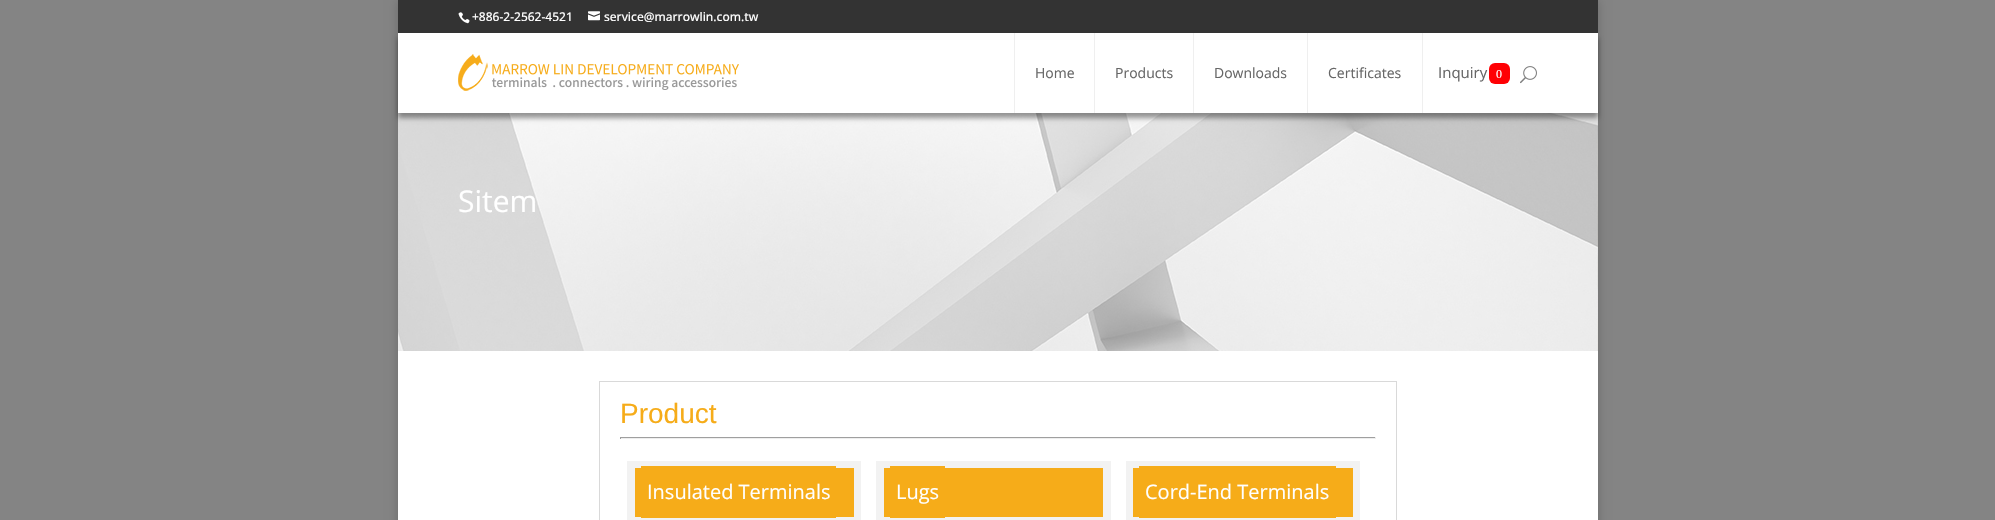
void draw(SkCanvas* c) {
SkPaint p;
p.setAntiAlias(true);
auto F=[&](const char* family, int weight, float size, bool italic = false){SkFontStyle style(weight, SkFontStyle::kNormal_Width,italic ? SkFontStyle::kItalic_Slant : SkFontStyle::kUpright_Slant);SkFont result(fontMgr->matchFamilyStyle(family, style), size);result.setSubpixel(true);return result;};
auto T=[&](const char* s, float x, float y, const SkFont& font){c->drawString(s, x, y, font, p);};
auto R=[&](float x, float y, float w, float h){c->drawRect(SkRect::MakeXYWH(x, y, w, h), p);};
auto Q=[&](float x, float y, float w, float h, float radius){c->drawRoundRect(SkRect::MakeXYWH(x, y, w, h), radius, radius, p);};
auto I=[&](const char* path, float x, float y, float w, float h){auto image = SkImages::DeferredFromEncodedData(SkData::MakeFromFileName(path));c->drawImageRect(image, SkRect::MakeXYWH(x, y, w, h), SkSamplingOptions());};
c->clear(0xff848484);
p.setColor(0x33000000);
p.setMaskFilter(SkMaskFilter::MakeBlur(kNormal_SkBlurStyle, 5));
c->drawRect(SkRect::MakeXYWH(398,0,1200,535),p);
p.setMaskFilter(nullptr);
p.setColor(0xffffffff);
R(398,351,1200,169);
I("5.png",398,113,1200,238);
p.setColor(0x66000000);
p.setMaskFilter(SkMaskFilter::MakeBlur(kNormal_SkBlurStyle, 2.5));
c->drawRect(SkRect::MakeXYWH(398,38,1200,80),p);
p.setMaskFilter(nullptr);
p.setColor(0xffffffff);
R(398,33,1200,80);
p.setColor(0xffefefef);
R(1014,32,1,81);
R(1094,32,1,81);
R(1193,32,1,81);
R(1422,32,1,81);
R(1307,32,1,81);
p.setColor(0xff333333);
R(398,0,1200,33);
I("1.png",458,12,12,12);
auto f1 = F("Open Sans",500,12);
p.setColor(0xffffffff);
T("+886-2-2562-4521",472,21,f1);
I("2.png",588,11,12,10);
T("service@marrowlin.com.tw",604,21,f1);
I("3.png",458,54,281,37);
auto f2 = F("Open Sans",400,14);
p.setColor(0xff666666);
T("Home",1035,78,f2);
T("Products",1115,78,f2);
T("Downloads",1214,78,f2);
T("Certificates",1328,78,f2);
auto f3 = F("Open Sans",400,15);
T("Inquiry",1438,78,f3);
p.setColor(0xffff0004);
Q(1489,63,21,21,6);
auto f4 = F("Liberation Serif",400,12);
p.setColor(0xffffffff);
T("0",1496,78,f4);
I("4.png",1520,66,17,18);
auto f5 = F("Open Sans",400,30);
T("Sitem",458,212,f5);
p.setStroke(true);
p.setStrokeWidth(1);
p.setColor(0xffd9d9d9);
c->drawRect(SkRect::MakeXYWH(599.5,381.5,797,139),p);
auto f6 = F("Liberation Sans",400,28);
p.setStroke(false);
p.setColor(0xfff6ac19);
T("Product",620,423,f6);
p.setColor(0xff9f9f9f);
R(620,437,756,1);
p.setColor(0xffeeeeee);
R(1375,437,1,2);
R(620,438,756,1);
p.setColor(0xff9f9f9f);
R(620,437,1,2);
p.setColor(0xfff2f2f2);
R(627,461,234,59);
p.setColor(0xfff6ac19);
R(635,468,219,49);
R(641,466,195,52);
auto f7 = F("Open Sans",400,20);
p.setColor(0xffffffff);
T("Insulated Terminals",647,499,f7);
p.setColor(0xfff2f2f2);
R(876,461,235,59);
p.setColor(0xfff6ac19);
R(884,468,219,49);
R(890,466,55,52);
p.setColor(0xffffffff);
T("Lugs",896,499,f7);
p.setColor(0xfff2f2f2);
R(1126,461,234,59);
p.setColor(0xfff6ac19);
R(1133,468,220,49);
R(1139,466,197,52);
p.setColor(0xffffffff);
T("Cord-End Terminals",1145,499,f7);
}
